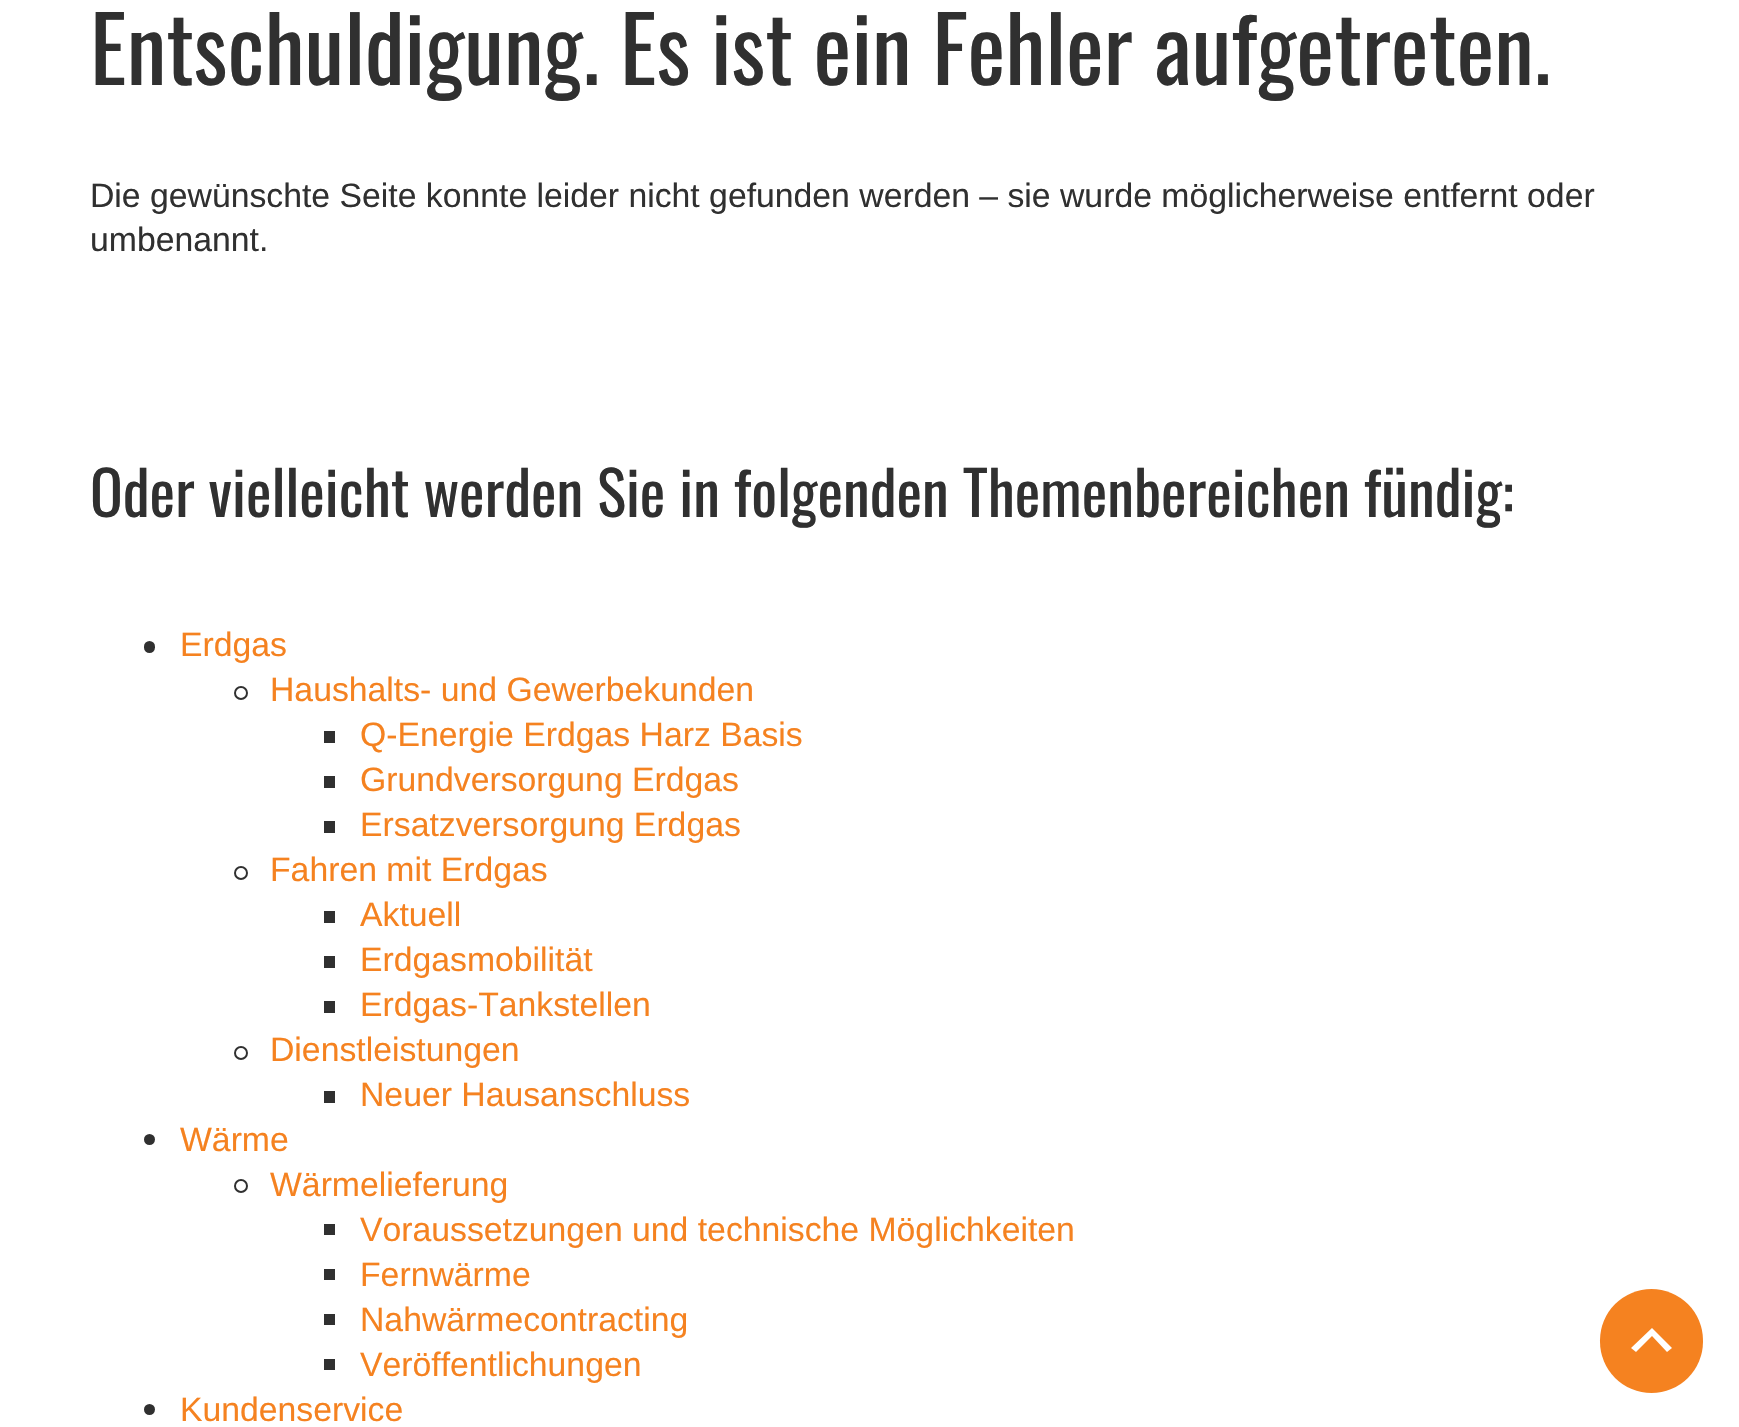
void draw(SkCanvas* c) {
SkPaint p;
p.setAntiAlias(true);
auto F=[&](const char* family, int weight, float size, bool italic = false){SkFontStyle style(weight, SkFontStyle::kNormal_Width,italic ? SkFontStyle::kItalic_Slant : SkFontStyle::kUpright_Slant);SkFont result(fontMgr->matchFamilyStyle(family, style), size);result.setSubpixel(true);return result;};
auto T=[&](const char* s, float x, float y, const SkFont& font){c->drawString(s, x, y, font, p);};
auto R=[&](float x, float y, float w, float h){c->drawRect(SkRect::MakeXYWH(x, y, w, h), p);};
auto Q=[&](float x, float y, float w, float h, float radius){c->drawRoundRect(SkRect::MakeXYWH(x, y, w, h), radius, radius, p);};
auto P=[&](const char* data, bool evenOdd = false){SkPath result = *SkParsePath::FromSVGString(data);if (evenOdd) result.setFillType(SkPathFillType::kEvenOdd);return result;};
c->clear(0xffffffff);
auto f1 = F("Oswald",400,90);
p.setColor(0xff303030);
T("Entschuldigung. Es ist ein Fehler aufgetreten.",90,85,f1);
auto f2 = F("Liberation Sans",400,33.75);
T("Die gewünschte Seite konnte leider nicht gefunden werden – sie wurde möglicherweise entfernt oder",90,207,f2);
T("umbenannt.",90,251,f2);
auto f3 = F("Oswald",400,60.75);
T("Oder vielleicht werden Sie in folgenden Themenbereichen fündig:",90,517,f3);
Q(144,641,11,12,5.5);
p.setColor(0xfff58220);
T("Erdgas",180,656,f2);
p.setStroke(true);
p.setStrokeWidth(2);
p.setColor(0xff303030);
c->drawCircle(241,693,6,p);
p.setStroke(false);
p.setColor(0xfff58220);
T("Haushalts- und Gewerbekunden",270,701,f2);
p.setColor(0xff303030);
R(324,731,11,12);
p.setColor(0xfff58220);
T("Q-Energie Erdgas Harz Basis",360,746,f2);
p.setColor(0xff303030);
R(324,776,11,12);
p.setColor(0xfff58220);
T("Grundversorgung Erdgas",360,791,f2);
p.setColor(0xff303030);
R(324,821,11,12);
p.setColor(0xfff58220);
T("Ersatzversorgung Erdgas",360,836,f2);
p.setStroke(true);
p.setColor(0xff303030);
c->drawCircle(241,873,6,p);
p.setStroke(false);
p.setColor(0xfff58220);
T("Fahren mit Erdgas",270,881,f2);
p.setColor(0xff303030);
R(324,911,11,12);
p.setColor(0xfff58220);
T("Aktuell",360,926,f2);
p.setColor(0xff303030);
R(324,956,11,12);
p.setColor(0xfff58220);
T("Erdgasmobilität",360,971,f2);
p.setColor(0xff303030);
R(324,1001,11,12);
p.setColor(0xfff58220);
T("Erdgas-Tankstellen",360,1016,f2);
p.setStroke(true);
p.setColor(0xff303030);
c->drawCircle(241,1053,6,p);
p.setStroke(false);
p.setColor(0xfff58220);
T("Dienstleistungen",270,1061,f2);
p.setColor(0xff303030);
R(324,1091,11,12);
p.setColor(0xfff58220);
T("Neuer Hausanschluss",360,1106,f2);
p.setColor(0xff303030);
c->drawCircle(149.5,1139.5,5.5,p);
p.setColor(0xfff58220);
T("Wärme",180,1151,f2);
p.setStroke(true);
p.setColor(0xff303030);
c->drawCircle(241,1186,6,p);
p.setStroke(false);
p.setColor(0xfff58220);
T("Wärmelieferung",270,1196,f2);
p.setColor(0xff303030);
R(324,1224,11,11);
p.setColor(0xfff58220);
T("Voraussetzungen und technische Möglichkeiten",360,1241,f2);
p.setColor(0xff303030);
R(324,1269,11,11);
p.setColor(0xfff58220);
T("Fernwärme",360,1286,f2);
p.setColor(0xff303030);
R(324,1314,11,11);
p.setColor(0xfff58220);
T("Nahwärmecontracting",360,1331,f2);
p.setColor(0xff303030);
R(324,1359,11,11);
p.setColor(0xfff58220);
T("Veröffentlichungen",360,1376,f2);
p.setColor(0xff303030);
c->drawCircle(149.5,1409.5,5.5,p);
p.setColor(0xfff58220);
T("Kundenservice",180,1421,f2);
Q(1600,1289,103,104,51.5);
p.setColor(0xffffffff);
c->drawPath(P("M1631 1348l5 4l16-16l15 16l5-4l-20-20z"),p);
}
